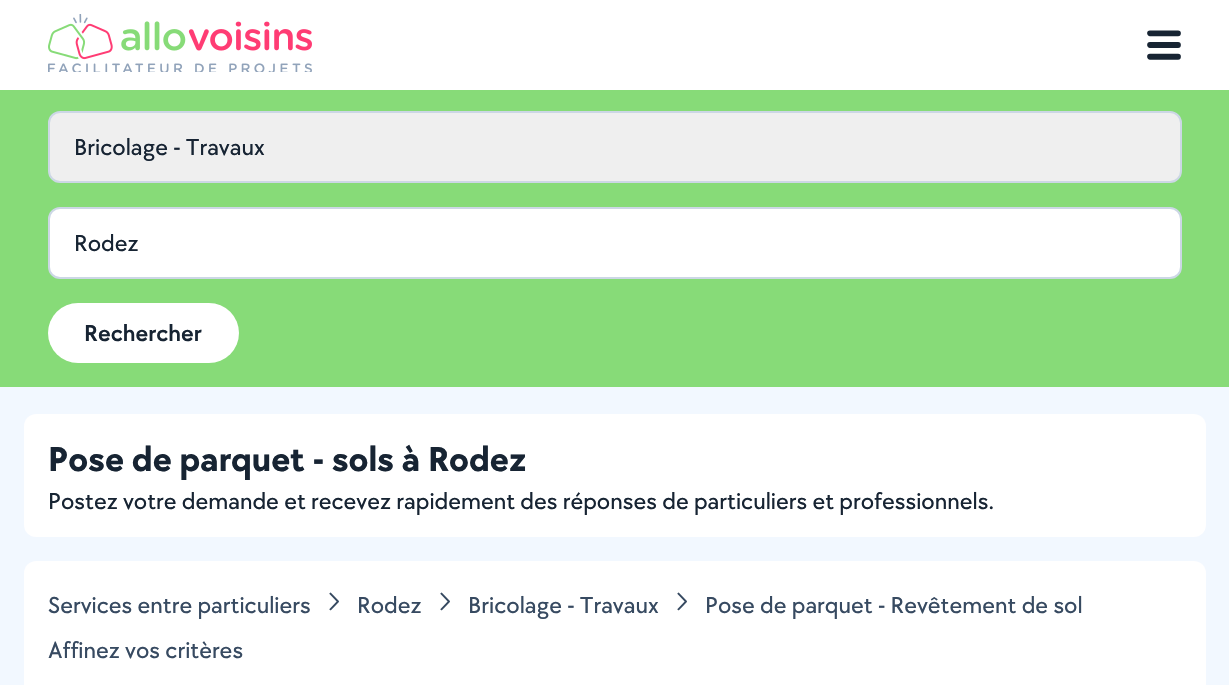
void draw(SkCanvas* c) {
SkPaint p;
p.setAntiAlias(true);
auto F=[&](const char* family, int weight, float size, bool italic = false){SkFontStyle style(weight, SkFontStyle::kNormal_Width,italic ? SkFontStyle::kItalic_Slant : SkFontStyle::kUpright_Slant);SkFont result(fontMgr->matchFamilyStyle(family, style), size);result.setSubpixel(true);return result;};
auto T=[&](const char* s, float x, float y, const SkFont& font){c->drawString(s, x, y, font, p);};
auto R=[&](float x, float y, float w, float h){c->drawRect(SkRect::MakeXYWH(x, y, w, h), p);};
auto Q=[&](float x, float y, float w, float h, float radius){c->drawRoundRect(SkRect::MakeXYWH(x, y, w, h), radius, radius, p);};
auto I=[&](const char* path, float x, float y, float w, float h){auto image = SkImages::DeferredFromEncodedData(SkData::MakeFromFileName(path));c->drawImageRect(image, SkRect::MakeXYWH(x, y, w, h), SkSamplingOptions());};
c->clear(0xfff2f8ff);
p.setColor(0xffffffff);
R(0,0,1229,90);
I("1.png",48,14,264,58);
I("2.png",1147,30,34,30);
p.setColor(0xff87db78);
R(0,90,1229,297);
p.setColor(0xffefefef);
c->drawRoundRect(SkRect::MakeXYWH(49,112,1132,70),11,11,p);
p.setStroke(true);
p.setStrokeWidth(2);
p.setColor(0xffccd7e5);
c->drawRoundRect(SkRect::MakeXYWH(49,112,1132,70),11,11,p);
auto f1 = F("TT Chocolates",500,24);
p.setStroke(false);
p.setColor(0xff172433);
T("Bricolage - Travaux",74,155,f1);
p.setColor(0xffffffff);
c->drawRoundRect(SkRect::MakeXYWH(49,208,1132,70),11,11,p);
p.setStroke(true);
p.setColor(0xffccd7e5);
c->drawRoundRect(SkRect::MakeXYWH(49,208,1132,70),11,11,p);
p.setStroke(false);
p.setColor(0xff172433);
T("Rodez",74,251,f1);
p.setColor(0xffffffff);
Q(48,303,191,60,30);
auto f2 = F("TT Chocolates",600,24);
p.setColor(0xff172433);
T("Rechercher",84,341,f2);
p.setColor(0xffffffff);
Q(24,414,1182,123,12);
auto f3 = F("TT Chocolates",700,36);
p.setColor(0xff172433);
T("Pose de parquet - sols à Rodez",48,471,f3);
T("Postez votre demande et recevez rapidement des réponses de particuliers et professionnels.",48,509,f1);
p.setColor(0xffffffff);
Q(24,561,1182,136,12);
p.setColor(0xff374a61);
T("Services entre particuliers",48,613,f1);
I("3.png",329,592,10,19);
T("Rodez",357,613,f1);
I("3.png",440,592,10,19);
T("Bricolage - Travaux",468,613,f1);
I("3.png",677,592,10,19);
T("Pose de parquet - Revêtement de sol",705,613,f1);
T("Affinez vos critères",48,658,f1);
}
